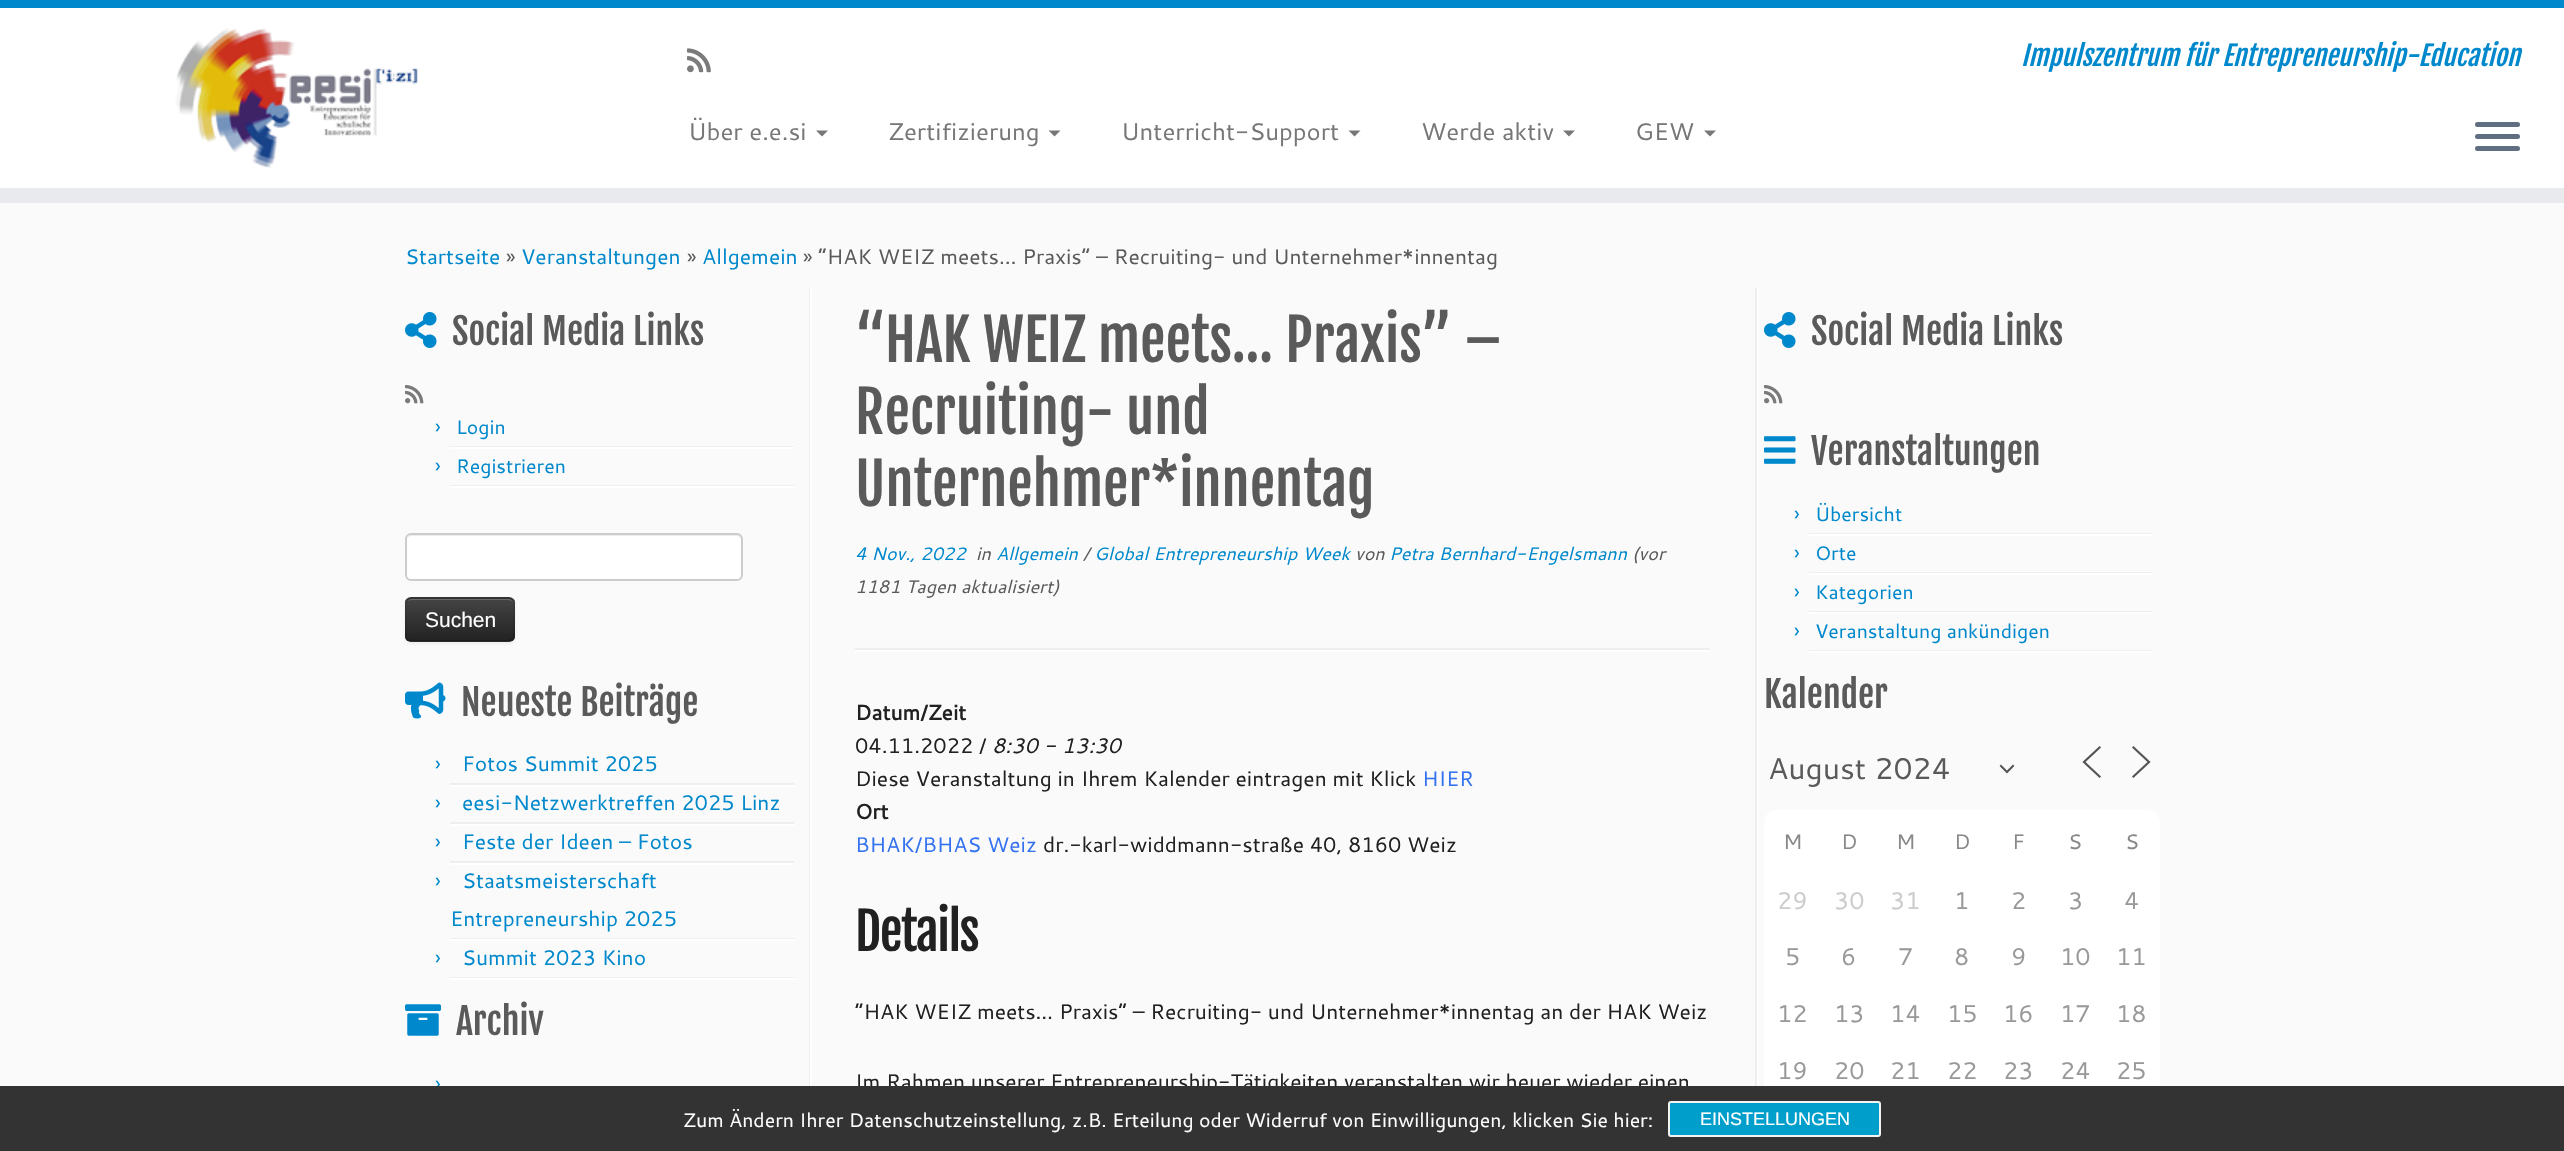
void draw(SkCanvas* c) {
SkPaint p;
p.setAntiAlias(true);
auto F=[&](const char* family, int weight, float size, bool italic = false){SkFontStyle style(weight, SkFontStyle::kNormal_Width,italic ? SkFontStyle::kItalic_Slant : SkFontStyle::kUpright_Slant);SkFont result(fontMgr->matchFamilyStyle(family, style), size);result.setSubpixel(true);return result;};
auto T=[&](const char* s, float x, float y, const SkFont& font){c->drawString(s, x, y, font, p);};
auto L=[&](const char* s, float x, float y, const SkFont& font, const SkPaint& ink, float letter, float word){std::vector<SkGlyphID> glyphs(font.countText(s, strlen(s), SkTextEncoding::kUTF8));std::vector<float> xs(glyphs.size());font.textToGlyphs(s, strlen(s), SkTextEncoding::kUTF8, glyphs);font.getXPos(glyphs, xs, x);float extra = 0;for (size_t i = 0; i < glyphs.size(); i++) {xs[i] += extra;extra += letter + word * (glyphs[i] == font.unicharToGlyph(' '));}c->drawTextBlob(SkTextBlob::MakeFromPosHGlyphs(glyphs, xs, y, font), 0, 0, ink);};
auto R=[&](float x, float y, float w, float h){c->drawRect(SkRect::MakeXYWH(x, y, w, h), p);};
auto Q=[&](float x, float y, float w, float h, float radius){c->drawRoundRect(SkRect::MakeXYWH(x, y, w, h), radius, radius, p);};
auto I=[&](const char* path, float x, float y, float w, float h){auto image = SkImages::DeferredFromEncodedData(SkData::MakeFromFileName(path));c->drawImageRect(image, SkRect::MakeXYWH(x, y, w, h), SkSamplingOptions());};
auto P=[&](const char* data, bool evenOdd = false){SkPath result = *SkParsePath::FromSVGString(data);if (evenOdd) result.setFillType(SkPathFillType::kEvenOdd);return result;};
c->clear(0xfffafafa);
p.setColor(0xffffffff);
R(0,8,2564,180);
p.setColor(0xff0088cc);
R(0,0,2564,8);
p.setColor(0xffe9eaee);
R(0,188,2564,15);
I("1.png",175,28,243,140);
I("2.png",687,48,24,25);
auto f1 = F("Fjalla One",400,27,true);
p.setColor(0xff0088cc);
T("Impulszentrum für Entrepreneurship-Education",2021,66,f1);
auto f2 = F("Cantarell",400,24);
p.setColor(0xff777777);
T("Über e.e.si",688,140,f2);
c->drawPath(P("M816 130.5h12l-6 6z"),p);
T("Zertifizierung",888,140,f2);
c->drawPath(P("M1048.5 130.5h12l-6 6z"),p);
T("Unterricht-Support",1121,140,f2);
c->drawPath(P("M1348.5 130.5h12l-6 6z"),p);
T("Werde aktiv",1421,140,f2);
c->drawPath(P("M1563 130.5h12l-6 6z"),p);
T("GEW",1635,140,f2);
c->drawPath(P("M1704 130.5h12l-6 6z"),p);
p.setColor(0xff5f6f81);
Q(2475,122,45,5,2.5);
Q(2475,134,45,5,2.5);
Q(2475,146,45,5,2.5);
auto f3 = F("Cantarell",400,21);
p.setColor(0xff0088cc);
T("Startseite",405,264,f3);
p.setColor(0xff5a5a5a);
T("»",506,264,f3);
p.setColor(0xff0088cc);
T("Veranstaltungen",521,264,f3);
p.setColor(0xff5a5a5a);
T("»",687,264,f3);
p.setColor(0xff0088cc);
T("Allgemein",702,264,f3);
p.setColor(0xff5a5a5a);
T("» “HAK WEIZ meets… Praxis” – Recruiting- und Unternehmer*innentag",803,264,f3);
p.setColor(0xffeeeeee);
R(809,288,1,798);
I("3.png",405,312,32,36);
auto f4 = F("Fjalla One",400,36);
p.setColor(0xff5a5a5a);
T("Social Media Links",452,345,f4);
I("4.png",405,385,19,19);
p.setColor(0xffffffff);
R(810,288,2,798);
p.setColor(0xffeeeeee);
R(450,446,344,1);
p.setColor(0xff0088cc);
T("›",435,434,f3);
auto f5 = F("Cantarell",400,19.5);
T("Login",456,434,f5);
p.setColor(0xffffffff);
R(450,447,344,2);
p.setColor(0xffeeeeee);
R(450,485,344,1);
p.setColor(0xff0088cc);
T("›",435,473,f3);
T("Registrieren",456,473,f5);
p.setColor(0xffffffff);
R(450,486,344,2);
Q(405,533,338,48,6);
p.setColor(0xffececec);
c->drawPath(P("M411 536h325c3 0 5 2 5 4v-1c0-3-2-5-5-5h-324c-2 0-4 2-5 4c1-1 3-2 4-2z"),p);
p.setStroke(true);
p.setStrokeWidth(2);
p.setColor(0xffcccccc);
c->drawRoundRect(SkRect::MakeXYWH(406,534,336,46),5,5,p);
p.setStroke(false);
p.setColor(0x0d000000);
p.setMaskFilter(SkMaskFilter::MakeBlur(kNormal_SkBlurStyle, 1.5));
c->drawRoundRect(SkRect::MakeXYWH(405,599,110,45),6,6,p);
p.setMaskFilter(nullptr);
p.setColor(0xff363636);
Q(405,597,110,45,6);
c->save();
c->clipPath(P("M411 597h98c3.5 0 6 2.5 6 6v33c0 3.5-2.5 6-6 6h-98c-3.5 0-6-2.5-6-6v-33c0-3.5 2.5-6 6-6z"),true);
{
const SkColor colors[] = {0xff444444,0xff222222};
const float stops[] = {0,1};
const SkPoint ends[] = {{460,599}, {460,641}};
p.setShader(SkGradientShader::MakeLinear(ends, colors, stops, 2, SkTileMode::kClamp));
p.setAlpha(255);
}
R(405,599,110,42);
c->restore();
p.setShader(nullptr);
p.setColor(0xff696969);
c->drawPath(P("M411 600h97c3 0 5 2 5 4c0-3-2-5-5-5h-96c-2 0-3 1-4 2z"),p);
p.setStroke(true);
p.setStrokeWidth(1.5);
p.setColor(0x40000000);
c->drawPath(P("M512 639.5l-3 1.5h-98.5l-3-1.5"),p);
p.setColor(0x1a000000);
c->drawPath(P("M407.5 639.5c-2.5-2-1.5-6-1.5-9v-11c0-24.5-4-21.5 21-21.5h65c25.5 0 22-3 22 21.5v11c0 3 .5 7-2 9"),p);
auto f6 = F("Liberation Sans",400,21);
p.setStroke(false);
p.setColor(0xffffffff);
T("Suchen",425,627,f6);
I("5.png",405,682,41,37);
p.setColor(0xff5a5a5a);
T("Neueste Beiträge",461,716,f4);
p.setColor(0xffeeeeee);
R(450,783,344,2);
p.setColor(0xff0088cc);
T("›",435,771,f3);
T("Fotos Summit 2025",462,771,f3);
p.setColor(0xffffffff);
R(450,785,344,2);
p.setColor(0xffeeeeee);
R(450,822,344,2);
p.setColor(0xff0088cc);
T("›",435,810,f3);
T("eesi-Netzwerktreffen 2025 Linz",462,810,f3);
p.setColor(0xffffffff);
R(450,824,344,2);
p.setColor(0xffeeeeee);
R(450,861,344,2);
p.setColor(0xff0088cc);
T("›",435,849,f3);
T("Feste der Ideen – Fotos",462,849,f3);
p.setColor(0xffffffff);
R(450,863,344,2);
p.setColor(0xffeeeeee);
R(450,938,344,1);
p.setColor(0xff0088cc);
T("›",435,888,f3);
T("Staatsmeisterschaft",462,888,f3);
T("Entrepreneurship 2025",450,926,f3);
p.setColor(0xffffffff);
R(450,939,344,2);
p.setColor(0xffeeeeee);
R(450,977,344,1);
p.setColor(0xff0088cc);
T("›",435,965,f3);
T("Summit 2023 Kino",462,965,f3);
p.setColor(0xffffffff);
R(450,978,344,2);
I("6.png",405,1004,36,32);
p.setColor(0xff5a5a5a);
T("Archiv",456,1035,f4);
p.setColor(0xff0088cc);
T("›",435,1091,f3);
auto f7 = F("Fjalla One",400,57);
p.setColor(0xff5a5a5a);
T("“HAK WEIZ meets… Praxis” –",855,362,f7);
T("Recruiting- und",855,434,f7);
T("Unternehmer*innentag",855,506,f7);
auto f8 = F("Cantarell",400,18,true);
p.setColor(0xff0088cc);
T("4 Nov., 2022",855,560,f8);
p.setColor(0xff5a5a5a);
T("in",976,560,f8);
p.setColor(0xff0088cc);
T("Allgemein",996,560,f8);
p.setColor(0xff5a5a5a);
T("/",1083,560,f8);
p.setColor(0xff0088cc);
T("Global Entrepreneurship Week",1094,560,f8);
p.setColor(0xff5a5a5a);
T("von",1355,560,f8);
p.setColor(0xff0088cc);
T("Petra Bernhard-Engelsmann",1389,560,f8);
p.setColor(0xff5a5a5a);
T("(vor",1632,560,f8);
T("1181 Tagen aktualisiert)",855,593,f8);
p.setColor(0xffeeeeee);
R(855,648,855,2);
p.setColor(0xffffffff);
R(855,650,855,2);
auto f9 = F("Cantarell",700,21);
p.setColor(0xff212121);
T("Datum/Zeit",855,720,f9);
T("04.11.2022 /",855,753,f3);
auto f10 = F("Cantarell",400,21,true);
T("8:30 - 13:30",992,753,f10);
T("Diese Veranstaltung in Ihrem Kalender eintragen mit Klick",855,786,f3);
p.setColor(0xff3372f0);
T("HIER",1422,786,f3);
p.setColor(0xff212121);
T("Ort",855,819,f9);
p.setColor(0xff3372f0);
T("BHAK/BHAS Weiz",855,852,f3);
p.setColor(0xff212121);
T("dr.-karl-widdmann-straße 40, 8160 Weiz",1043,852,f3);
auto f11 = F("Fjalla One",400,51);
L("Details",855,951,f11,p,-1.5,0);
T("“HAK WEIZ meets… Praxis” – Recruiting- und Unternehmer*innentag an der HAK Weiz",855,1019,f3);
T("Im Rahmen unserer Entrepreneurship-Tätigkeiten veranstalten wir heuer wieder einen",855,1089,f3);
p.setColor(0xffeeeeee);
R(1755,288,2,798);
p.setColor(0xffffffff);
R(1757,288,2,798);
I("3.png",1764,312,32,36);
p.setColor(0xff5a5a5a);
T("Social Media Links",1811,345,f4);
I("4.png",1764,385,19,19);
I("7.png",1764,436,32,28);
T("Veranstaltungen",1811,465,f4);
p.setColor(0xffeeeeee);
R(1809,533,344,1);
p.setColor(0xff0088cc);
T("›",1794,521,f3);
T("Übersicht",1815,521,f5);
p.setColor(0xffffffff);
R(1809,534,344,2);
p.setColor(0xffeeeeee);
R(1809,572,344,1);
p.setColor(0xff0088cc);
T("›",1794,560,f3);
T("Orte",1815,560,f5);
p.setColor(0xffffffff);
R(1809,573,344,2);
p.setColor(0xffeeeeee);
R(1809,611,344,1);
p.setColor(0xff0088cc);
T("›",1794,599,f3);
T("Kategorien",1815,599,f5);
p.setColor(0xffffffff);
R(1809,612,344,2);
p.setColor(0xffeeeeee);
R(1809,650,344,1);
p.setColor(0xff0088cc);
T("›",1794,638,f3);
T("Veranstaltung ankündigen",1815,638,f5);
p.setColor(0xffffffff);
R(1809,651,344,2);
p.setColor(0xff5a5a5a);
T("Kalender",1764,708,f4);
p.setStroke(true);
p.setStrokeWidth(2);
p.setStrokeCap(SkPaint::kSquare_Cap);
p.setColor(0xff555555);
c->drawPath(P("M2001 766l6 6l6-6"),p);
auto f12 = F("Cantarell",400,30);
p.setStroke(false);
p.setColor(0xff5a5a5a);
T("August 2024",1768,779,f12);
p.setStroke(true);
p.setStrokeWidth(2.2);
p.setColor(0xff555555);
c->drawPath(P("M2099.5 776.5l-15.5-14.5l15.5-14.5"),p);
c->drawPath(P("M2133.5 776.5l15.5-14.5l-15.5-14.5"),p);
p.setStroke(false);
p.setColor(0xffffffff);
c->drawPath(P("M1776 810h372c6.5 0 12 5.5 12 12v51h-396v-51c0-6.5 5.5-12 12-12z"),p);
p.setColor(0xff888888);
T("M",1783,849,f3);
T("D",1841,849,f3);
T("M",1896,849,f3);
T("D",1954,849,f3);
T("F",2012,849,f3);
T("S",2068,849,f3);
T("S",2125,849,f3);
p.setColor(0xffffffff);
R(1764,873,396,213);
p.setColor(0xffcccccc);
T("29",1777,909,f2);
T("30",1834,909,f2);
T("31",1890,909,f2);
p.setColor(0xff999999);
T("1",1954,909,f2);
T("2",2011,909,f2);
T("3",2068,909,f2);
T("4",2124,909,f2);
T("5",1785,965,f2);
T("6",1841,965,f2);
T("7",1898,965,f2);
T("8",1954,965,f2);
T("9",2011,965,f2);
T("10",2060,965,f2);
T("11",2116,965,f2);
T("12",1777,1022,f2);
T("13",1834,1022,f2);
T("14",1890,1022,f2);
T("15",1947,1022,f2);
T("16",2003,1022,f2);
T("17",2060,1022,f2);
T("18",2116,1022,f2);
T("19",1777,1079,f2);
T("20",1834,1079,f2);
T("21",1890,1079,f2);
T("22",1947,1079,f2);
T("23",2003,1079,f2);
T("24",2060,1079,f2);
T("25",2116,1079,f2);
p.setColor(0xff333333);
R(0,1086,2564,65);
p.setColor(0xffffffff);
T("Zum Ändern Ihrer Datenschutzeinstellung, z.B. Erteilung oder Widerruf von Einwilligungen, klicken Sie hier:",683,1127,f5);
p.setColor(0xff009ecb);
c->drawRoundRect(SkRect::MakeXYWH(1669,1102,211,34),2,2,p);
p.setStroke(true);
p.setStrokeWidth(2);
p.setStrokeCap(SkPaint::kButt_Cap);
p.setColor(0xfff3f3f3);
c->drawRoundRect(SkRect::MakeXYWH(1669,1102,211,34),2,2,p);
auto f13 = F("Liberation Sans",400,18);
p.setStroke(false);
p.setColor(0xffffffff);
T("EINSTELLUNGEN",1700,1125,f13);
}
